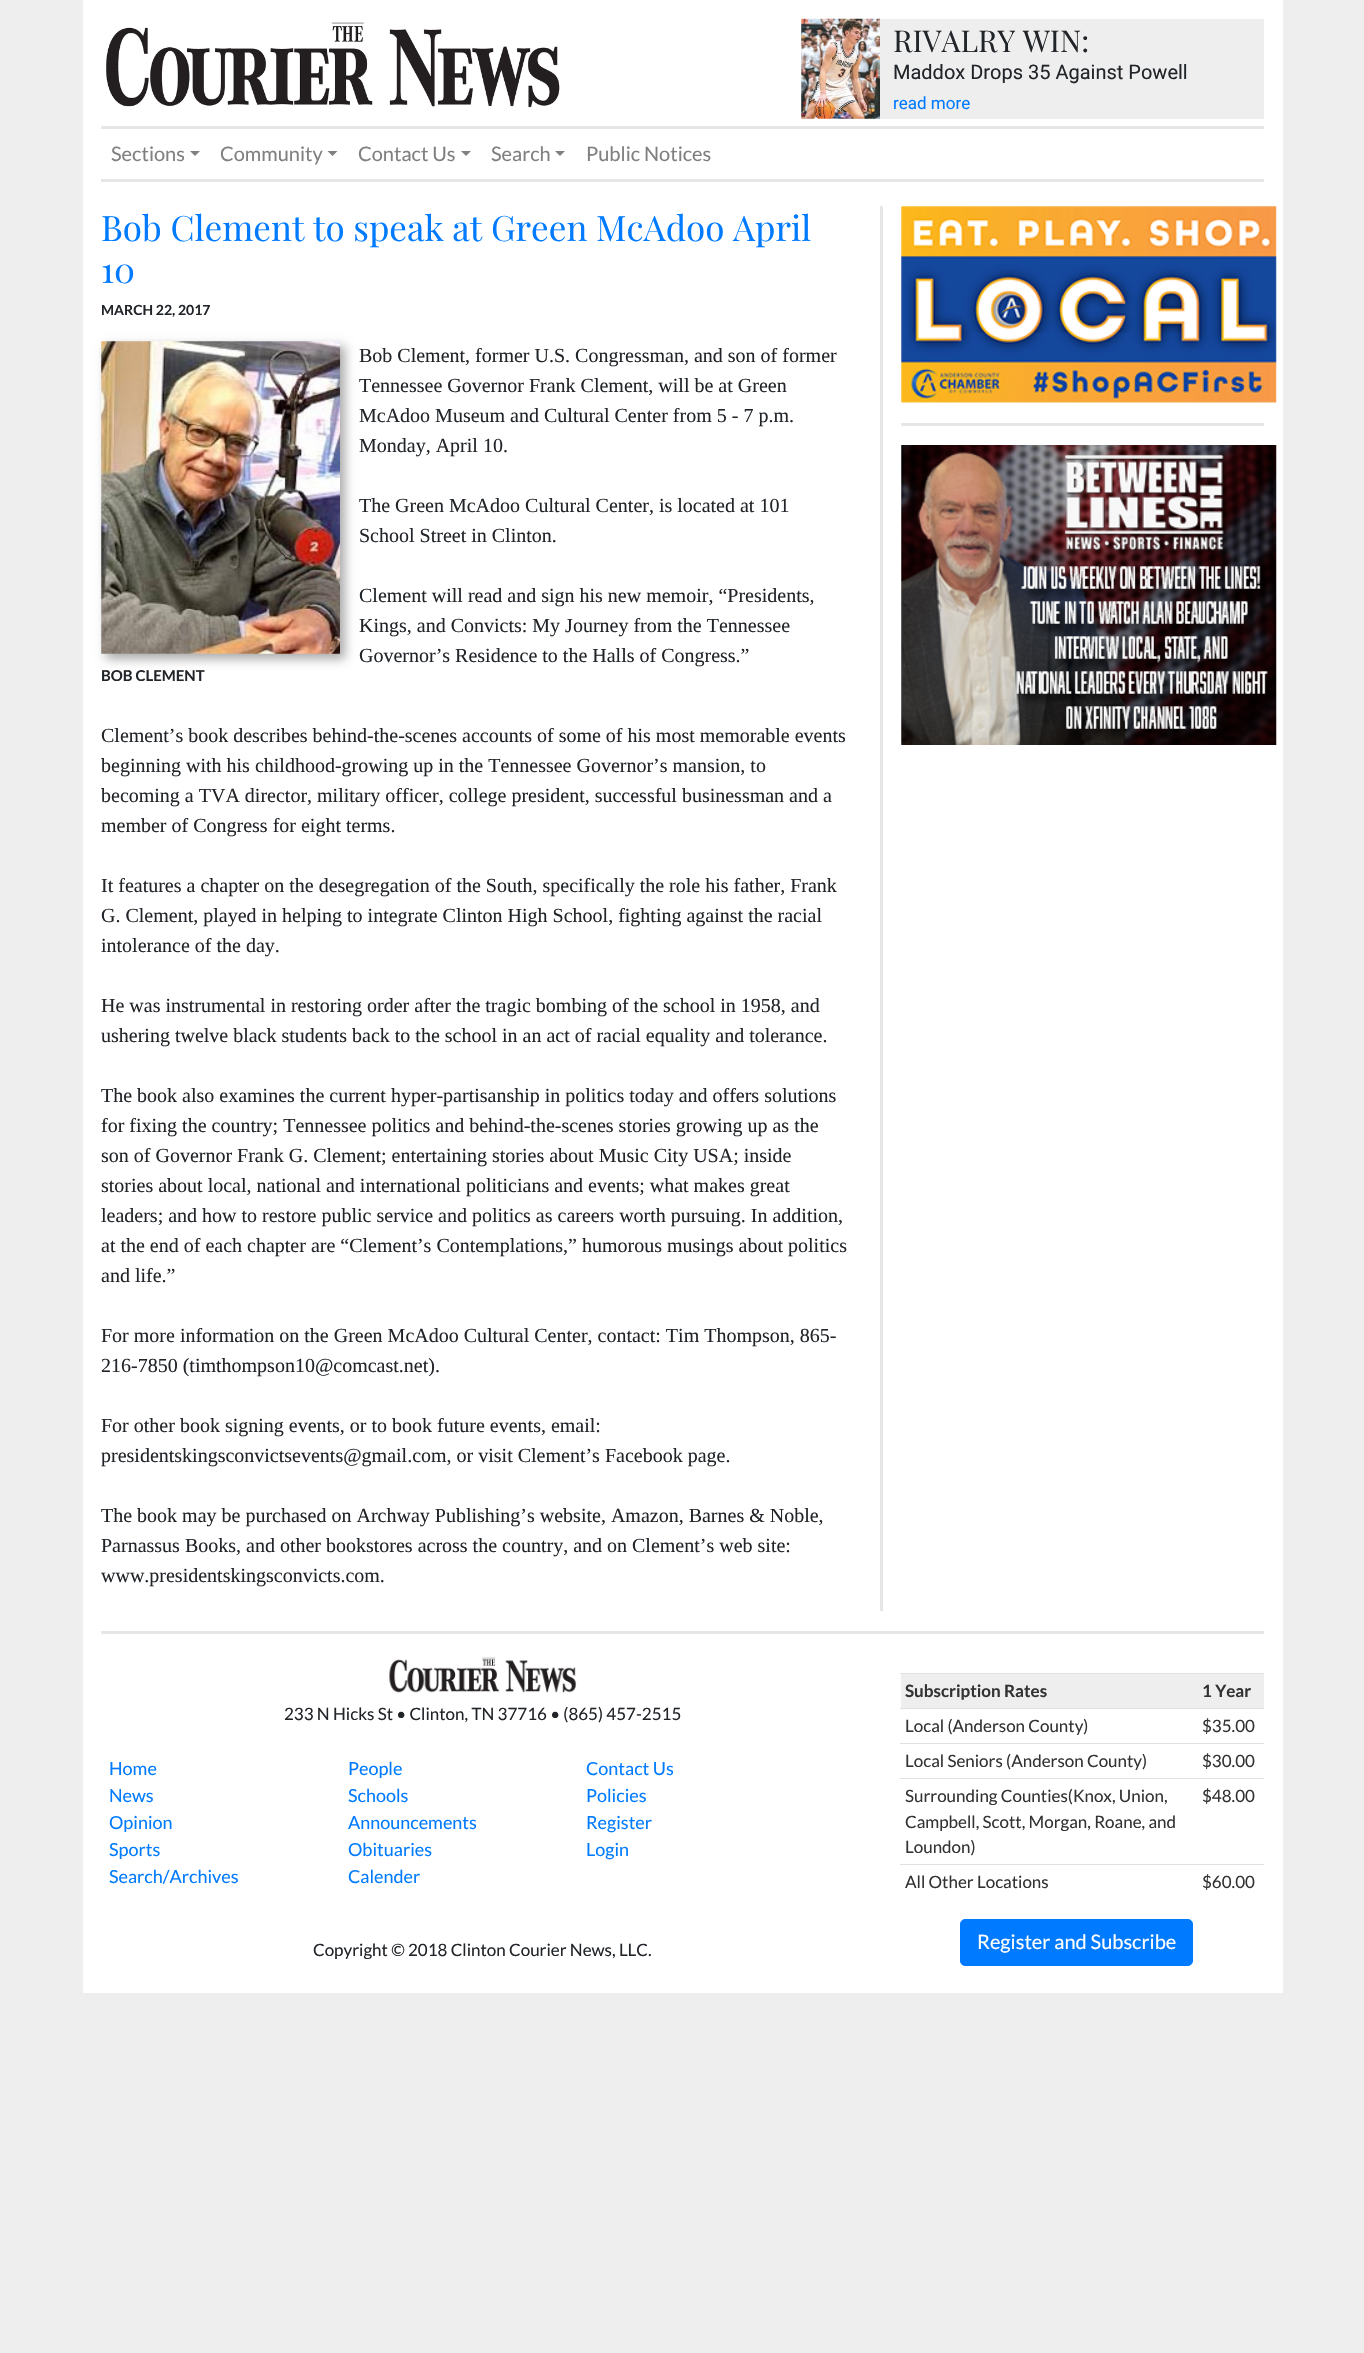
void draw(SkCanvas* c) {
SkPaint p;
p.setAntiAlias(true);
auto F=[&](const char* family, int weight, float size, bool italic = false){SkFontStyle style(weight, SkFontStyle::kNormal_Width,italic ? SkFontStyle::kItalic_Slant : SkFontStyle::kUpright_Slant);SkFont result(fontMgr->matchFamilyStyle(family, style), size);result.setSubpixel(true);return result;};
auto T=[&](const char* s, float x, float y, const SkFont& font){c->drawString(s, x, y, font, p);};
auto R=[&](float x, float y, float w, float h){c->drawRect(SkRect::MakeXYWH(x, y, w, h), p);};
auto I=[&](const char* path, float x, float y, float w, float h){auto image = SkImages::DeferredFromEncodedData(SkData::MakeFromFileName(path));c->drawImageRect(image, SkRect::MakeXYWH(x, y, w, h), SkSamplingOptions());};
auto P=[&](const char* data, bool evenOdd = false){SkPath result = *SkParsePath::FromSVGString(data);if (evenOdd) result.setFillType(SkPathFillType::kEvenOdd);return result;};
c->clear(0xffeeeeee);
p.setColor(0xffffffff);
R(83,0,1200,1993);
I("1.png",106,22,454,86);
p.setColor(0xffeeeeee);
R(801,19,463,100);
I("2.png",801,18,79,101);
auto f1 = F("Playfair Display",400,30);
p.setColor(0xff212529);
T("RIVALRY WIN:",893,52,f1);
auto f2 = F("Roboto",400,20);
T("Maddox Drops 35 Against Powell",893,79,f2);
auto f3 = F("Roboto",400,17);
p.setColor(0xff007bff);
T("read more",893,109,f3);
p.setColor(0xffe6e6e6);
R(101,126,1163,3);
R(101,179,1163,3);
auto f4 = F("Lato",400,20);
p.setColor(0xff808080);
T("Sections",111,161,f4);
c->drawPath(P("M190 151h10l-5 5z"),p);
T("Community",220,161,f4);
c->drawPath(P("M327.5 151h10l-5 5z"),p);
T("Contact Us",358,161,f4);
c->drawPath(P("M461 151h10l-5 5z"),p);
T("Search",491,161,f4);
c->drawPath(P("M555 151h10l-5 5z"),p);
T("Public Notices",586,161,f4);
p.setColor(0xffe6e6e6);
R(880,206,3,1405);
auto f5 = F("Playfair Display",400,35);
p.setColor(0xff007bff);
T("Bob Clement to speak at Green McAdoo April",101,241,f5);
T("10",101,283,f5);
auto f6 = F("Lato",700,14);
p.setColor(0xff212529);
T("MARCH 22, 2017",101,315,f6);
auto f7 = F("Liberation Serif",400,20);
T("Bob Clement, former U.S. Congressman, and son of former",359,362,f7);
T("Tennessee Governor Frank Clement, will be at Green",359,392,f7);
T("McAdoo Museum and Cultural Center from 5 - 7 p.m.",359,422,f7);
T("Monday, April 10.",359,452,f7);
T("The Green McAdoo Cultural Center, is located at 101",359,512,f7);
T("School Street in Clinton.",359,542,f7);
T("Clement will read and sign his new memoir, “Presidents,",359,602,f7);
T("Kings, and Convicts: My Journey from the Tennessee",359,632,f7);
T("Governor’s Residence to the Halls of Congress.”",359,662,f7);
p.setColor(0xffaaaaaa);
p.setMaskFilter(SkMaskFilter::MakeBlur(kNormal_SkBlurStyle, 5));
c->drawRect(SkRect::MakeXYWH(106,346,239,313),p);
p.setMaskFilter(nullptr);
I("3.png",101,341,239,313);
auto f8 = F("Lato",700,15);
p.setColor(0xff212529);
T("BOB CLEMENT",101,681,f8);
T("Clement’s book describes behind-the-scenes accounts of some of his most memorable events",101,742,f7);
T("beginning with his childhood-growing up in the Tennessee Governor’s mansion, to",101,772,f7);
T("becoming a TVA director, military officer, college president, successful businessman and a",101,802,f7);
T("member of Congress for eight terms.",101,832,f7);
T("It features a chapter on the desegregation of the South, specifically the role his father, Frank",101,892,f7);
T("G. Clement, played in helping to integrate Clinton High School, fighting against the racial",101,922,f7);
T("intolerance of the day.",101,952,f7);
T("He was instrumental in restoring order after the tragic bombing of the school in 1958, and",101,1012,f7);
T("ushering twelve black students back to the school in an act of racial equality and tolerance.",101,1042,f7);
T("The book also examines the current hyper-partisanship in politics today and offers solutions",101,1102,f7);
T("for fixing the country; Tennessee politics and behind-the-scenes stories growing up as the",101,1132,f7);
T("son of Governor Frank G. Clement; entertaining stories about Music City USA; inside",101,1162,f7);
T("stories about local, national and international politicians and events; what makes great",101,1192,f7);
T("leaders; and how to restore public service and politics as careers worth pursuing. In addition,",101,1222,f7);
T("at the end of each chapter are “Clement’s Contemplations,” humorous musings about politics",101,1252,f7);
T("and life.”",101,1282,f7);
T("For more information on the Green McAdoo Cultural Center, contact: Tim Thompson, 865-",101,1342,f7);
T("216-7850 (timthompson10@comcast.net).",101,1372,f7);
T("For other book signing events, or to book future events, email:",101,1432,f7);
T("presidentskingsconvictsevents@gmail.com, or visit Clement’s Facebook page.",101,1462,f7);
T("The book may be purchased on Archway Publishing’s website, Amazon, Barnes & Noble,",101,1522,f7);
T("Parnassus Books, and other bookstores across the country, and on Clement’s web site:",101,1552,f7);
T("www.presidentskingsconvicts.com.",101,1582,f7);
I("4.png",901,206,376,197);
p.setColor(0xffe6e6e6);
R(901,423,363,3);
I("5.png",901,445,376,300);
R(101,1631,1163,3);
I("6.png",389,1657,188,36);
auto f9 = F("Lato",400,17);
p.setColor(0xff212529);
T("233 N Hicks St • Clinton, TN 37716 • (865) 457-2515",284,1720,f9);
auto f10 = F("Lato",400,18);
p.setColor(0xff007bff);
T("Home",109,1775,f10);
T("News",109,1802,f10);
T("Opinion",109,1829,f10);
T("Sports",109,1856,f10);
T("Search/Archives",109,1883,f10);
T("People",348,1775,f10);
T("Schools",348,1802,f10);
T("Announcements",348,1829,f10);
T("Obituaries",348,1856,f10);
T("Calender",348,1883,f10);
T("Contact Us",586,1775,f10);
T("Policies",586,1802,f10);
T("Register",586,1829,f10);
T("Login",586,1856,f10);
p.setColor(0xff212529);
T("Copyright © 2018 Clinton Courier News, LLC.",313,1956,f9);
p.setColor(0xffeeeeee);
R(901,1674,363,34);
auto f11 = F("Lato",700,17);
p.setColor(0xff333333);
T("Subscription Rates",905,1697,f11);
p.setColor(0xffdee2e6);
R(900,1673,364,1);
p.setColor(0xff333333);
T("1 Year",1202,1697,f11);
T("Local (Anderson County)",905,1732,f9);
p.setColor(0xffdee2e6);
R(900,1708,364,1);
p.setColor(0xff333333);
T("$35.00",1202,1732,f9);
T("Local Seniors (Anderson County)",905,1767,f9);
p.setColor(0xffdee2e6);
R(900,1743,364,1);
p.setColor(0xff333333);
T("$30.00",1202,1767,f9);
T("Surrounding Counties(Knox, Union,",905,1802,f9);
T("Campbell, Scott, Morgan, Roane, and",905,1828,f9);
T("Loundon)",905,1853,f9);
p.setColor(0xffdee2e6);
R(900,1778,364,1);
p.setColor(0xff333333);
T("$48.00",1202,1802,f9);
T("All Other Locations",905,1888,f9);
p.setColor(0xffdee2e6);
R(900,1864,364,1);
p.setColor(0xff333333);
T("$60.00",1202,1888,f9);
p.setColor(0xff007bff);
c->drawRoundRect(SkRect::MakeXYWH(960.5,1919.5,232,46),4.5,4.5,p);
p.setStroke(true);
p.setStrokeWidth(1);
c->drawRoundRect(SkRect::MakeXYWH(960.5,1919.5,232,46),4.5,4.5,p);
p.setStroke(false);
p.setColor(0xffffffff);
T("Register and Subscribe",977,1949,f4);
}
